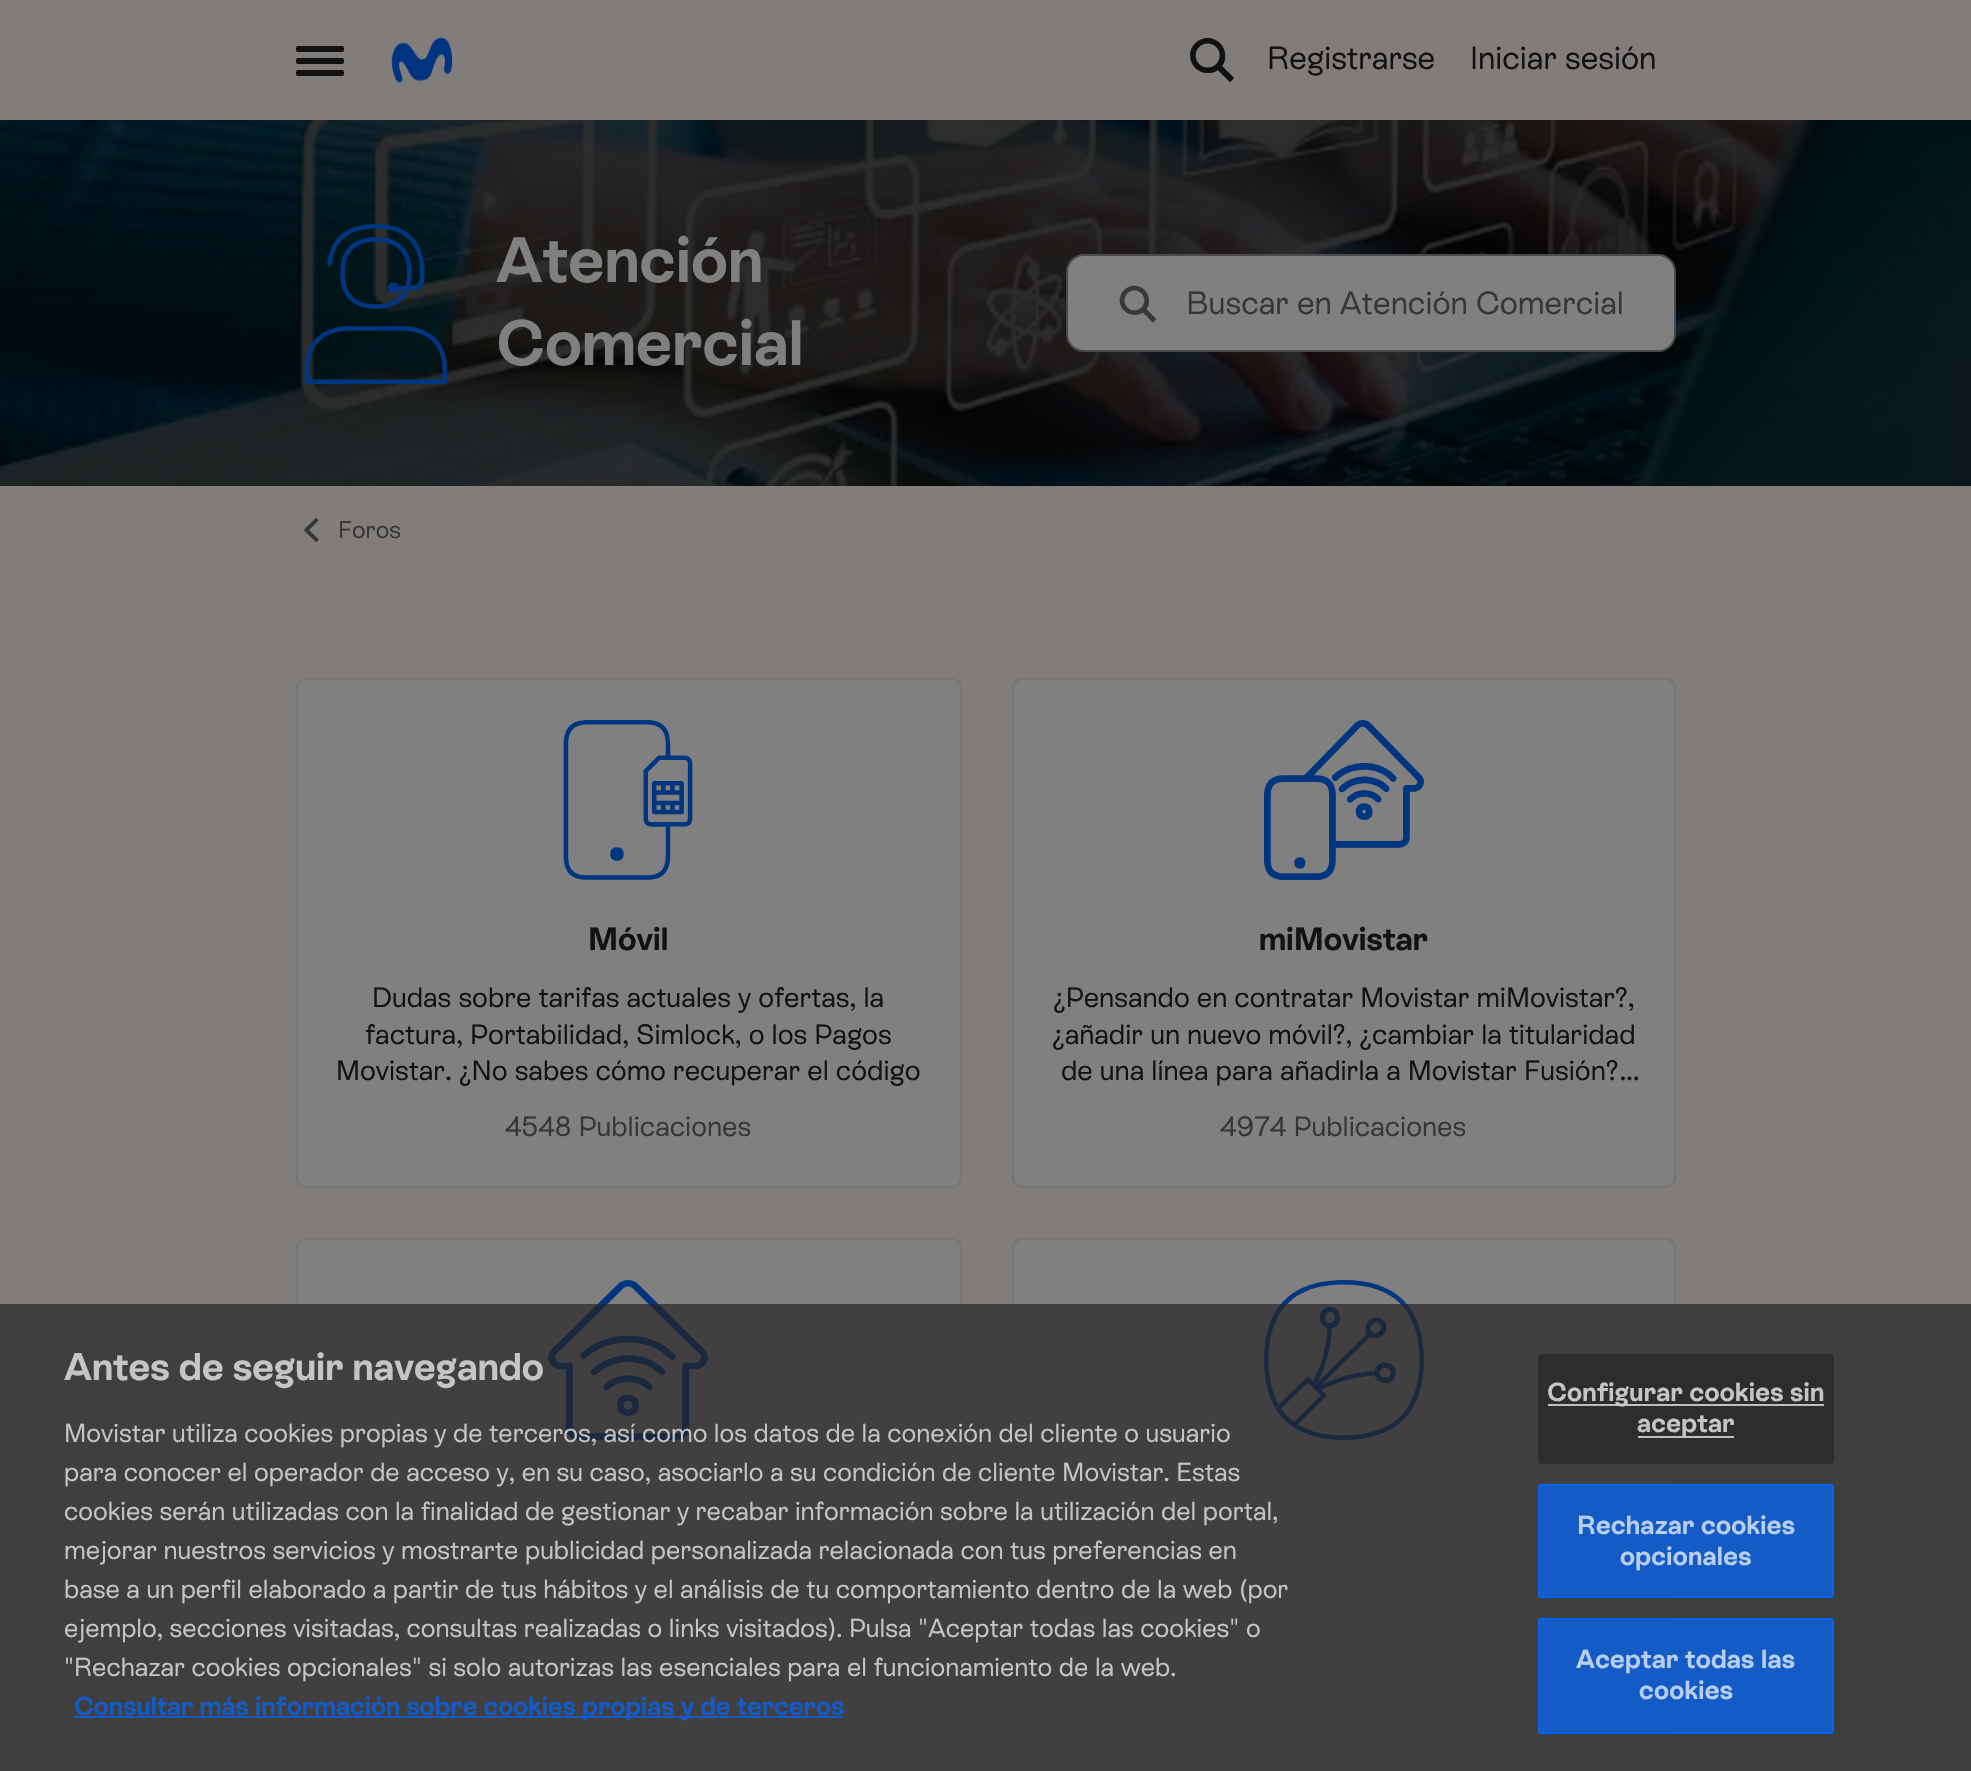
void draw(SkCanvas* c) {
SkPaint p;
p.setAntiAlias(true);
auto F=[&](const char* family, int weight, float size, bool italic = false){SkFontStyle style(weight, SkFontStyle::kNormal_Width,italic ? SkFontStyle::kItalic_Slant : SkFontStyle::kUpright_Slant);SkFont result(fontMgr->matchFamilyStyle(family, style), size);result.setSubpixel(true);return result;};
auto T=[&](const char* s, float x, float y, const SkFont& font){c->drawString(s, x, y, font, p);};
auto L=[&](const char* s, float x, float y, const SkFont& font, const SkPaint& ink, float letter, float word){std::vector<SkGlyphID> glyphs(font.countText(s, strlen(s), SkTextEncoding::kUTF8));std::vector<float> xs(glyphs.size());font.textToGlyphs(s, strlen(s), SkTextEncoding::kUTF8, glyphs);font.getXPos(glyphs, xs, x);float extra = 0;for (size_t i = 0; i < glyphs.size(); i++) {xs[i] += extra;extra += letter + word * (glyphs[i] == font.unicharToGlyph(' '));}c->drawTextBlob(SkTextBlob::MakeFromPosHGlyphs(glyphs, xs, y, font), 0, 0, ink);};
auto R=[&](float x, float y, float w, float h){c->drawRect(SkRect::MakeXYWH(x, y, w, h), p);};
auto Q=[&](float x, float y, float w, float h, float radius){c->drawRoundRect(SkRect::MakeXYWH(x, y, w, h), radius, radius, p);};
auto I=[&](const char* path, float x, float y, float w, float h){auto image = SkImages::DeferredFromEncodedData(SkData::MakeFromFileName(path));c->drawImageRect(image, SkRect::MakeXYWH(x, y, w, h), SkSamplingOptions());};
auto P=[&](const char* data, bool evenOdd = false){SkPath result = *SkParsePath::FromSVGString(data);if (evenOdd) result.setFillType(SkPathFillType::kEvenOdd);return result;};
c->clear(0xff807d7b);
p.setColor(0xff131212);
Q(296,46,48,6,2);
Q(296,58,48,6,2);
Q(296,70,48,6,2);
I("1.png",391,37,62,46);
I("2.png",1190,38,44,45);
auto f1 = F("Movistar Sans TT",400,32);
T("Registrarse",1267,69,f1);
T("Iniciar sesión",1470,69,f1);
I("3.png",0,120,1971,366);
I("4.png",304,224,143,160);
auto f2 = F("Movistar Sans TT",700,64);
p.setColor(0xff808080);
T("Atención",496,282,f2);
T("Comercial",496,365,f2);
c->drawRoundRect(SkRect::MakeXYWH(1067,255,608,96),17,17,p);
p.setStroke(true);
p.setStrokeWidth(2);
p.setColor(0xff4a4a4a);
c->drawRoundRect(SkRect::MakeXYWH(1067,255,608,96),17,17,p);
I("5.png",1119,285,37,38);
p.setStroke(false);
p.setColor(0xff808080);
c->drawPath(P("M1156 256h500c10 0 18 8 18 18v58c0 10-8 18-18 18h-500z"),p);
p.setColor(0xff363638);
T("Buscar en Atención Comercial",1186,314,f1);
I("6.png",304,518,15,24);
auto f3 = F("Movistar Sans TT",400,24);
T("Foros",338,538,f3);
p.setColor(0xff808080);
Q(296,678,666,510,10);
p.setStroke(true);
p.setColor(0x14000000);
c->drawRoundRect(SkRect::MakeXYWH(297,679,664,508),9,9,p);
I("7.png",563,720,130,160);
auto f4 = F("Movistar Sans TT",700,32);
p.setStroke(false);
p.setColor(0xff131212);
T("Móvil",588,950,f4);
auto f5 = F("Movistar Sans TT",400,28);
T("Dudas sobre tarifas actuales y ofertas, la",372,1007,f5);
T("factura, Portabilidad, Simlock, o los Pagos",365,1044,f5);
T("Movistar. ¿No sabes cómo recuperar el código",336,1080,f5);
p.setColor(0xff363638);
T("4548 Publicaciones",505,1136,f5);
p.setColor(0xff808080);
Q(1012,678,664,510,10);
p.setStroke(true);
p.setColor(0x14000000);
c->drawRoundRect(SkRect::MakeXYWH(1013,679,662,508),9,9,p);
I("8.png",1264,720,160,160);
p.setStroke(false);
p.setColor(0xff131212);
T("miMovistar",1259,950,f4);
T("¿Pensando en contratar Movistar miMovistar?,",1053,1007,f5);
T("¿añadir un nuevo móvil?, ¿cambiar la titularidad",1052,1044,f5);
T("de una línea para añadirla a Movistar Fusión?…",1061,1080,f5);
p.setColor(0xff363638);
T("4974 Publicaciones",1220,1136,f5);
p.setColor(0xff808080);
Q(296,1238,666,512,10);
p.setStroke(true);
p.setColor(0x14000000);
c->drawRoundRect(SkRect::MakeXYWH(297,1239,664,510),9,9,p);
I("9.png",548,1280,160,160);
p.setStroke(false);
p.setColor(0xff808080);
Q(1012,1238,664,512,10);
p.setStroke(true);
p.setColor(0x14000000);
c->drawRoundRect(SkRect::MakeXYWH(1013,1239,662,510),9,9,p);
I("10.png",1264,1280,160,160);
p.setStroke(false);
p.setColor(0xb3262423);
R(0,1304,1971,467);
auto f6 = F("Movistar Sans TT",700,38.4);
p.setColor(0xffc6c5c5);
T("Antes de seguir navegando",64,1380,f6);
auto f7 = F("Movistar Sans TT",400,26);
T("Movistar utiliza cookies propias y de terceros, así como los datos de la conexión del cliente o usuario",64,1442,f7);
T("para conocer el operador de acceso y, en su caso, asociarlo a su condición de cliente Movistar. Estas",64,1481,f7);
T("cookies serán utilizadas con la finalidad de gestionar y recabar información sobre la utilización del portal,",64,1520,f7);
T("mejorar nuestros servicios y mostrarte publicidad personalizada relacionada con tus preferencias en",64,1559,f7);
T("base a un perfil elaborado a partir de tus hábitos y el análisis de tu comportamiento dentro de la web (por",64,1598,f7);
T("ejemplo, secciones visitadas, consultas realizadas o links visitados). Pulsa \"Aceptar todas las cookies\" o",64,1637,f7);
T("\"Rechazar cookies opcionales\" si solo autorizas las esenciales para el funcionamiento de la web.",64,1676,f7);
p.setColor(0xb30066ff);
R(74,1716,770,2);
auto f8 = F("Movistar Sans TT",700,26);
p.setColor(0xff135ac5);
T("Consultar más información sobre cookies propias y de terceros",74,1715,f8);
p.setColor(0xb3262423);
Q(1538,1354,296,110,4);
p.setColor(0xffc0c0bf);
R(1548,1404,276,2);
p.setColor(0xffc6c5c5);
L("Configurar cookies sin",1547,1401,f8,p,.25,0);
p.setColor(0xffc0c0bf);
R(1638,1436,96,2);
p.setColor(0xffc6c5c5);
L("aceptar",1637,1432,f8,p,.25,0);
p.setColor(0xb30066ff);
Q(1538,1484,296,114,4);
p.setStroke(true);
c->drawRoundRect(SkRect::MakeXYWH(1539,1485,294,112),3,3,p);
p.setStroke(false);
p.setColor(0xffb8ceee);
L("Rechazar cookies",1577,1534,f8,p,.25,0);
L("opcionales",1620,1565,f8,p,.25,0);
p.setColor(0xb30066ff);
Q(1538,1618,296,116,4);
p.setStroke(true);
c->drawRoundRect(SkRect::MakeXYWH(1539,1619,294,114),3,3,p);
p.setStroke(false);
p.setColor(0xffb8ceee);
L("Aceptar todas las",1576,1668,f8,p,.25,0);
L("cookies",1639,1699,f8,p,.25,0);
}
